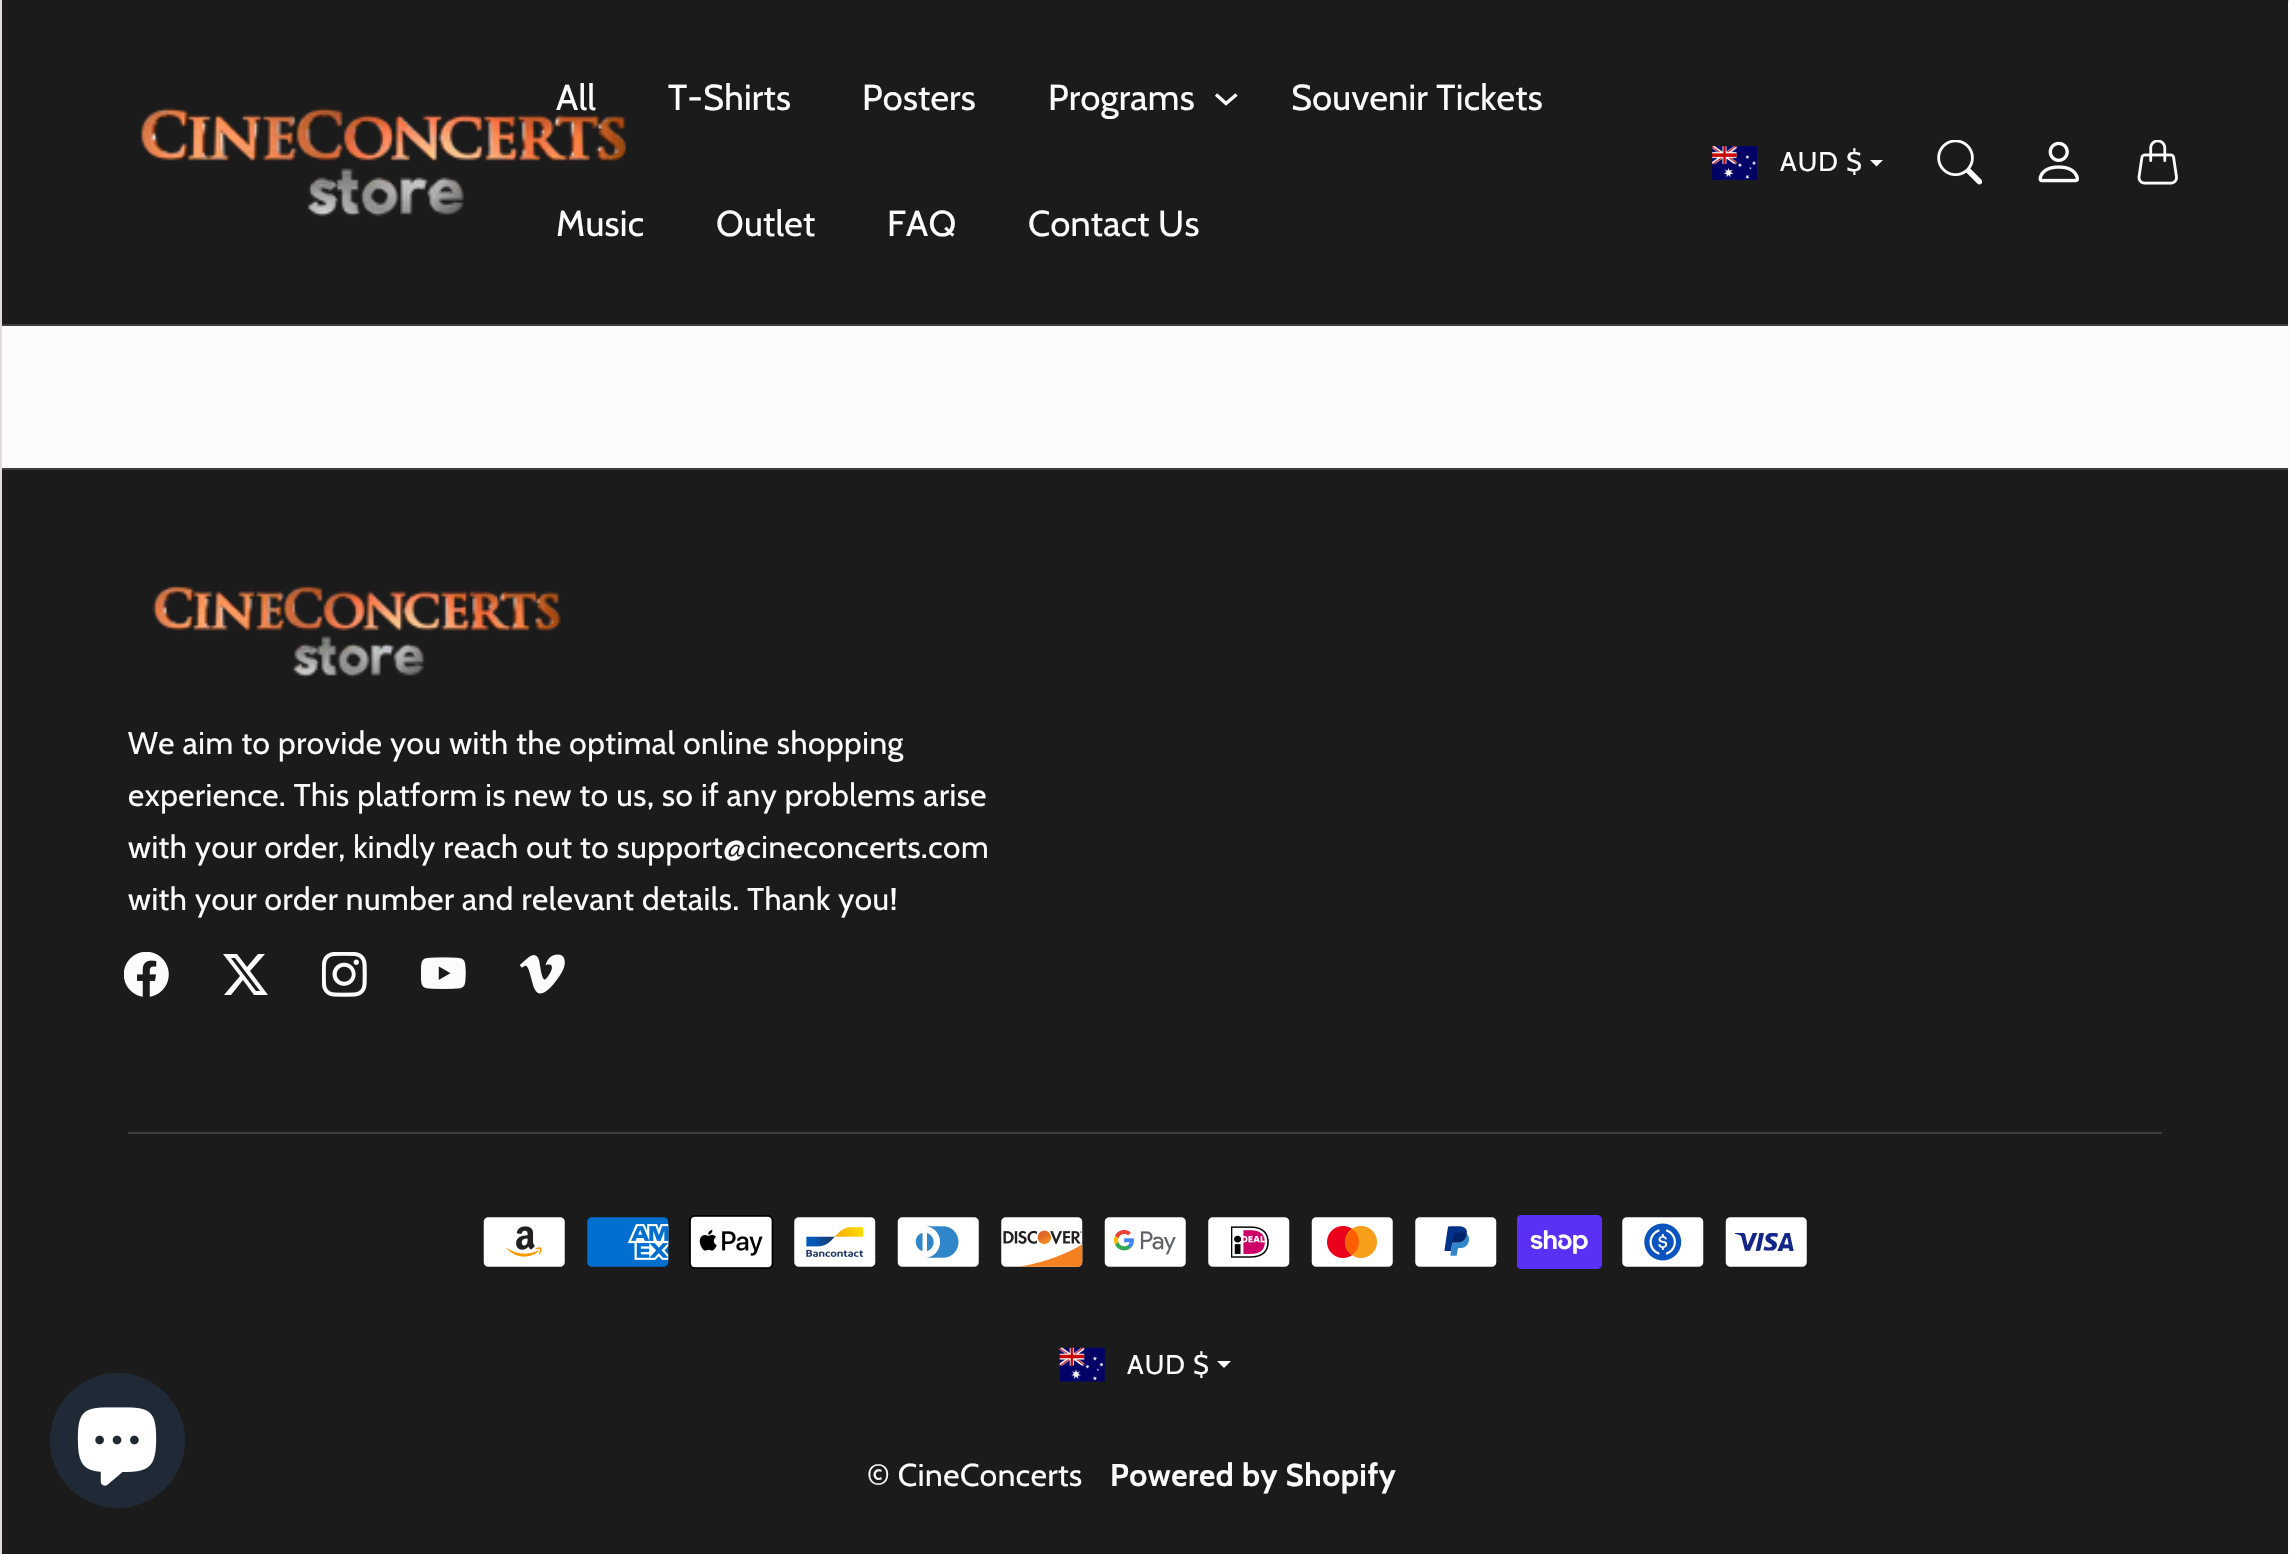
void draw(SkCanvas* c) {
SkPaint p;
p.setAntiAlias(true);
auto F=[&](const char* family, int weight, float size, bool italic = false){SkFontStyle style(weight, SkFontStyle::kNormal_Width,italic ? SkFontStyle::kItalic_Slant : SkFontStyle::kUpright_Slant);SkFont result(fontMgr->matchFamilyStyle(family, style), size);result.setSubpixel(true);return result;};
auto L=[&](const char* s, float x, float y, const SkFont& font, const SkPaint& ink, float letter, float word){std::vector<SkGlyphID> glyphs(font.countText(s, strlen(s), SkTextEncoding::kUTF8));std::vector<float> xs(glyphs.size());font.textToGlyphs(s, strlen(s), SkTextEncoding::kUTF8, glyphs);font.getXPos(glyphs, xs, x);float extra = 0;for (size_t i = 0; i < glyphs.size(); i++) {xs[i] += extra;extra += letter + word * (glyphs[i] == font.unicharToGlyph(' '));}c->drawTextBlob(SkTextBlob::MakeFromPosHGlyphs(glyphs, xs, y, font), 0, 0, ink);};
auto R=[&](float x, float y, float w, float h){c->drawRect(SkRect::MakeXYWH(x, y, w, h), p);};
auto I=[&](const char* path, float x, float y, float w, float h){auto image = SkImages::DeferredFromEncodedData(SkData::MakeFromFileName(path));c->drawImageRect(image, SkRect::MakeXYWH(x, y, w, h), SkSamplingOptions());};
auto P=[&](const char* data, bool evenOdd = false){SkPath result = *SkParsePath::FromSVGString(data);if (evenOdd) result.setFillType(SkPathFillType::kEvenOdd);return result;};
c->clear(0xfffbfbfb);
p.setStroke(true);
p.setStrokeWidth(2);
p.setColor(0xffe3dbdb);
c->drawRect(SkRect::MakeXYWH(1,1,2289,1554),p);
p.setStroke(false);
p.setColor(0xff1c1b1b);
R(2,0,2286,324);
p.setColor(0xff3e3e3e);
R(2,324,2286,2);
I("1.png",139,107,488,110);
auto f1 = F("Cabin",400,36);
p.setColor(0xfffbfbfb);
L("All",556,110,f1,p,.25,0);
L("T-Shirts",668,110,f1,p,.25,0);
L("Posters",862,110,f1,p,.25,0);
L("Programs",1048,110,f1,p,.25,0);
p.setStroke(true);
p.setStrokeWidth(3.4);
c->drawPath(P("M1216 94.5l10 9l10.5-9"),p);
p.setStroke(false);
L("Souvenir Tickets",1291,110,f1,p,.25,0);
L("Music",556,236,f1,p,.25,0);
L("Outlet",716,236,f1,p,.25,0);
L("FAQ",887,236,f1,p,.25,0);
L("Contact Us",1028,236,f1,p,.25,0);
I("2.png",1712,146,45,34);
auto f2 = F("Cabin",400,27);
L("AUD $",1780,171,f2,p,1,0);
c->drawPath(P("M1870 160h13l-6.5 6.5z"),p);
I("3.png",1937,140,45,45);
I("4.png",2038,141,41,42);
I("5.png",2137,140,41,45);
p.setColor(0xff1c1b1b);
R(2,470,2286,1084);
p.setColor(0xff202a36);
c->drawCircle(117.5,1440.5,67.5,p);
I("6.png",77,1407,80,79);
p.setColor(0xff3e3e3e);
R(2,468,2286,2);
I("7.png",152,585,409,93);
auto f3 = F("Cabin",400,31.5);
p.setColor(0xfffbfbfb);
L("We aim to provide you with the optimal online shopping",128,754,f3,p,.55,0);
L("experience. This platform is new to us, so if any problems arise",128,806,f3,p,.55,0);
L("with your order, kindly reach out to support@cineconcerts.com",128,858,f3,p,.55,0);
L("with your order number and relevant details. Thank you!",128,910,f3,p,.55,0);
I("8.png",124,952,45,45);
c->drawPath(P("M258 954h7l-15 17l18 24h-14l-11-15l-12 15h-7l16-19l-17-22h14l10 13zm-2 37h4l-25-33h-4z"),p);
I("9.png",322,952,45,45);
I("10.png",421,957,45,32);
I("11.png",520,954,45,40);
p.setColor(0xff3e3e3e);
R(128,1132,2034,2);
I("12.png",483,1217,82,50);
I("13.png",587,1217,82,50);
I("14.png",689,1215,85,54);
I("15.png",794,1217,82,50);
I("16.png",897,1217,82,50);
I("17.png",1001,1217,82,50);
I("18.png",1104,1217,82,50);
I("19.png",1208,1217,82,50);
I("20.png",1311,1217,82,50);
I("21.png",1415,1217,82,50);
I("22.png",1517,1215,85,54);
I("23.png",1622,1217,82,50);
I("24.png",1725,1217,82,50);
I("25.png",1059,1347,46,35);
p.setColor(0xfffbfbfb);
L("AUD $",1127,1374,f2,p,1,0);
c->drawPath(P("M1217 1361h14l-7 7z"),p);
L("© CineConcerts",867,1486,f3,p,.55,0);
auto f4 = F("Cabin",700,31.5);
L("Powered by Shopify",1110,1486,f4,p,.55,0);
}
